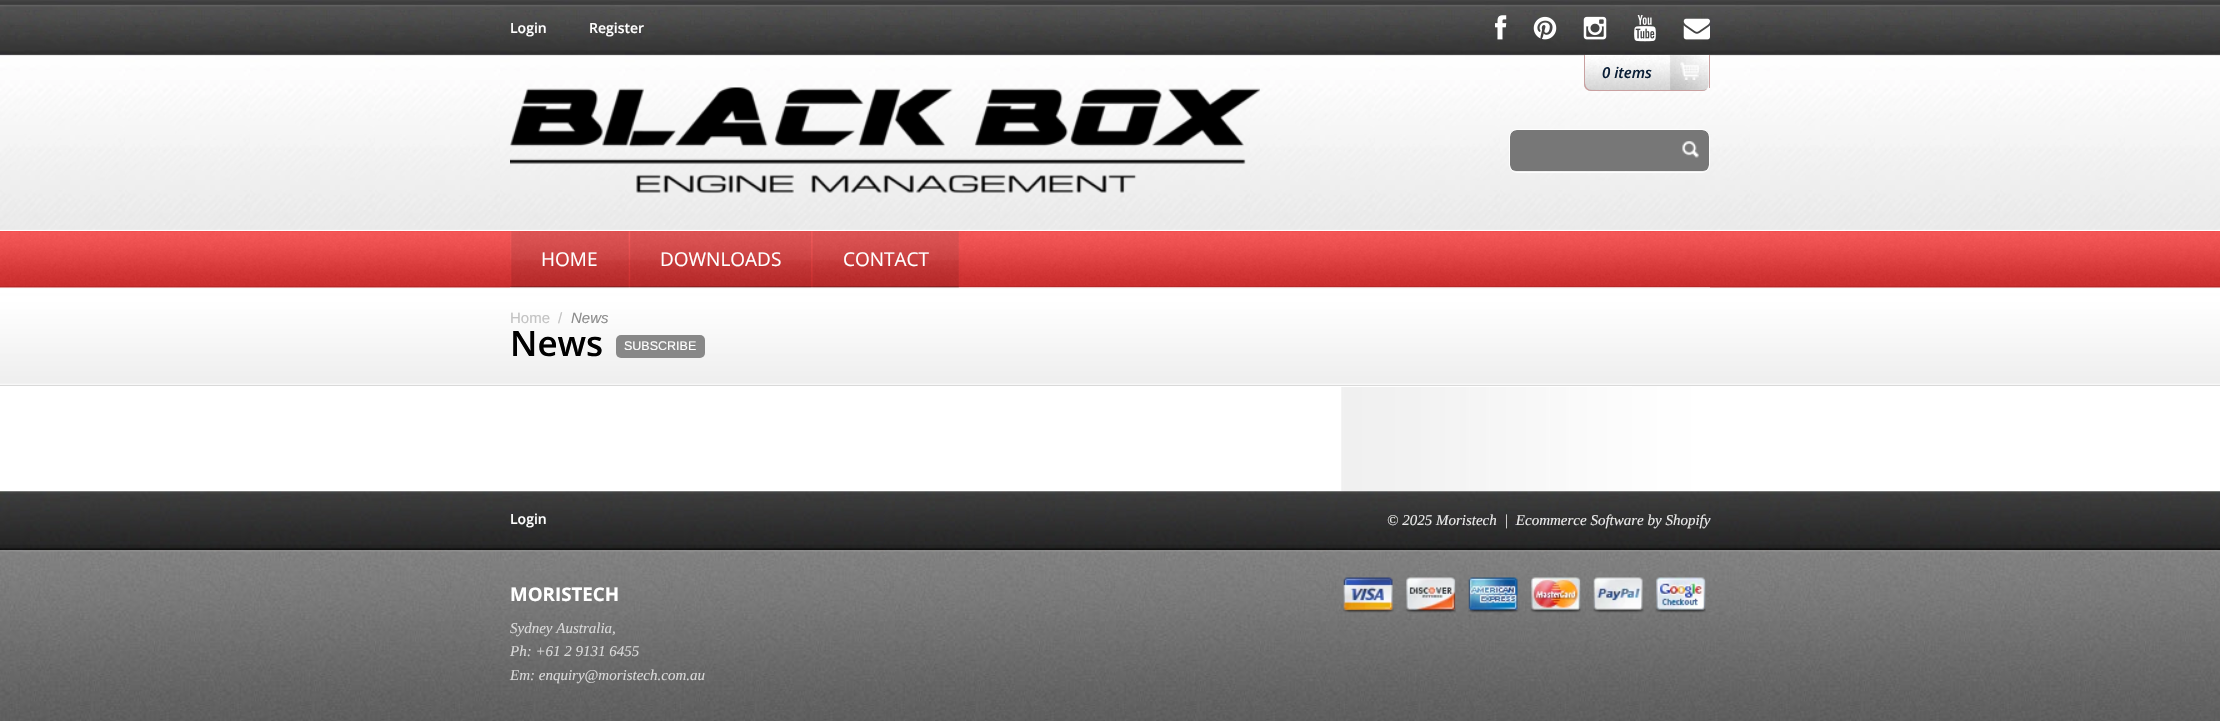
void draw(SkCanvas* c) {
SkPaint p;
p.setAntiAlias(true);
auto F=[&](const char* family, int weight, float size, bool italic = false){SkFontStyle style(weight, SkFontStyle::kNormal_Width,italic ? SkFontStyle::kItalic_Slant : SkFontStyle::kUpright_Slant);SkFont result(fontMgr->matchFamilyStyle(family, style), size);result.setSubpixel(true);return result;};
auto T=[&](const char* s, float x, float y, const SkFont& font){c->drawString(s, x, y, font, p);};
auto R=[&](float x, float y, float w, float h){c->drawRect(SkRect::MakeXYWH(x, y, w, h), p);};
auto Q=[&](float x, float y, float w, float h, float radius){c->drawRoundRect(SkRect::MakeXYWH(x, y, w, h), radius, radius, p);};
auto I=[&](const char* path, float x, float y, float w, float h){auto image = SkImages::DeferredFromEncodedData(SkData::MakeFromFileName(path));c->drawImageRect(image, SkRect::MakeXYWH(x, y, w, h), SkSamplingOptions());};
auto P=[&](const char* data, bool evenOdd = false){SkPath result = *SkParsePath::FromSVGString(data);if (evenOdd) result.setFillType(SkPathFillType::kEvenOdd);return result;};
c->clear(0xffffffff);
I("1.png",0,0,2220,230);
auto f1 = F("Open Sans",600,14);
p.setColor(0xffffffff);
T("Login",510,33,f1);
T("Register",589,33,f1);
I("2.png",1495,15,12,25);
I("3.png",1533,16,24,24);
I("4.png",1583,16,24,24);
I("5.png",1634,15,22,27);
I("6.png",1683,18,27,22);
c->drawPath(P("M1584 55h125v29c0 4-3 7-7 7h-111c-4 0-7-3-7-7z"),p);
I("7.png",1584,55,125,36);
p.setColor(0xffc9a1a1);
c->drawPath(P("M1584 55v29c0 4 3 7 7 7h111c2 0 4-1 5-2l-3 1h-112c-4 0-7-3-7-8v-27z"),p);
R(1709,55,1,33);
auto f2 = F("Open Sans",600,15,true);
p.setColor(0xff0a1e36);
T("0 items",1602,78,f2);
I("8.png",1680,62,19,18);
p.setColor(0xff777777);
Q(1510,130,199,41,6);
p.setStroke(true);
p.setStrokeWidth(1);
p.setColor(0xffffffff);
c->drawRoundRect(SkRect::MakeXYWH(1509.5,129.5,200,43),7.5,7.5,p);
I("9.png",1682,141,17,17);
I("10.png",510,87,750,107);
p.setStroke(false);
p.setColor(0xfff53636);
R(0,231,2220,57);
I("11.png",0,231,2220,57);
I("15.png",510,287,1200,205);
I("16.png",0,287,2220,99);
I("12.png",510,231,119,57);
auto f3 = F("Open Sans",400,19);
p.setColor(0xffffffff);
T("HOME",541,266,f3);
I("13.png",628,231,184,57);
T("DOWNLOADS",660,266,f3);
I("14.png",811,231,148,57);
T("CONTACT",843,266,f3);
R(1341,386,291,1);
auto f4 = F("Liberation Sans",400,15);
p.setColor(0xffc3c3c3);
T("Home",510,323,f4);
T("/",558,323,f4);
auto f5 = F("Liberation Sans",400,15,true);
p.setColor(0xff8c8c8c);
T("News",571,323,f5);
auto f6 = F("Open Sans",600,35);
p.setColor(0xff000000);
T("News",510,356,f6);
p.setColor(0xff888888);
Q(616,335,89,23,5);
auto f7 = F("Liberation Sans",400,12.5);
p.setColor(0xffffffff);
T("SUBSCRIBE",624,350,f7);
I("17.png",0,491,2220,230);
T("Login",510,524,f1);
auto f8 = F("Liberation Serif",400,15,true);
p.setColor(0xffeaeaea);
T("© 2025 Moristech  |  Ecommerce Software by Shopify",1387,525,f8);
auto f9 = F("Open Sans",700,18.75);
p.setColor(0xffffffff);
T("MORISTECH",510,601,f9);
p.setColor(0xffd9d9d9);
T("Sydney Australia,",510,633,f8);
T("Ph: +61 2 9131 6455",510,656,f8);
T("Em: enquiry@moristech.com.au",510,680,f8);
I("18.png",1343,577,51,36);
I("19.png",1405,577,51,36);
I("20.png",1468,577,51,36);
I("21.png",1530,577,51,36);
I("22.png",1593,577,51,36);
I("23.png",1655,577,51,36);
}
